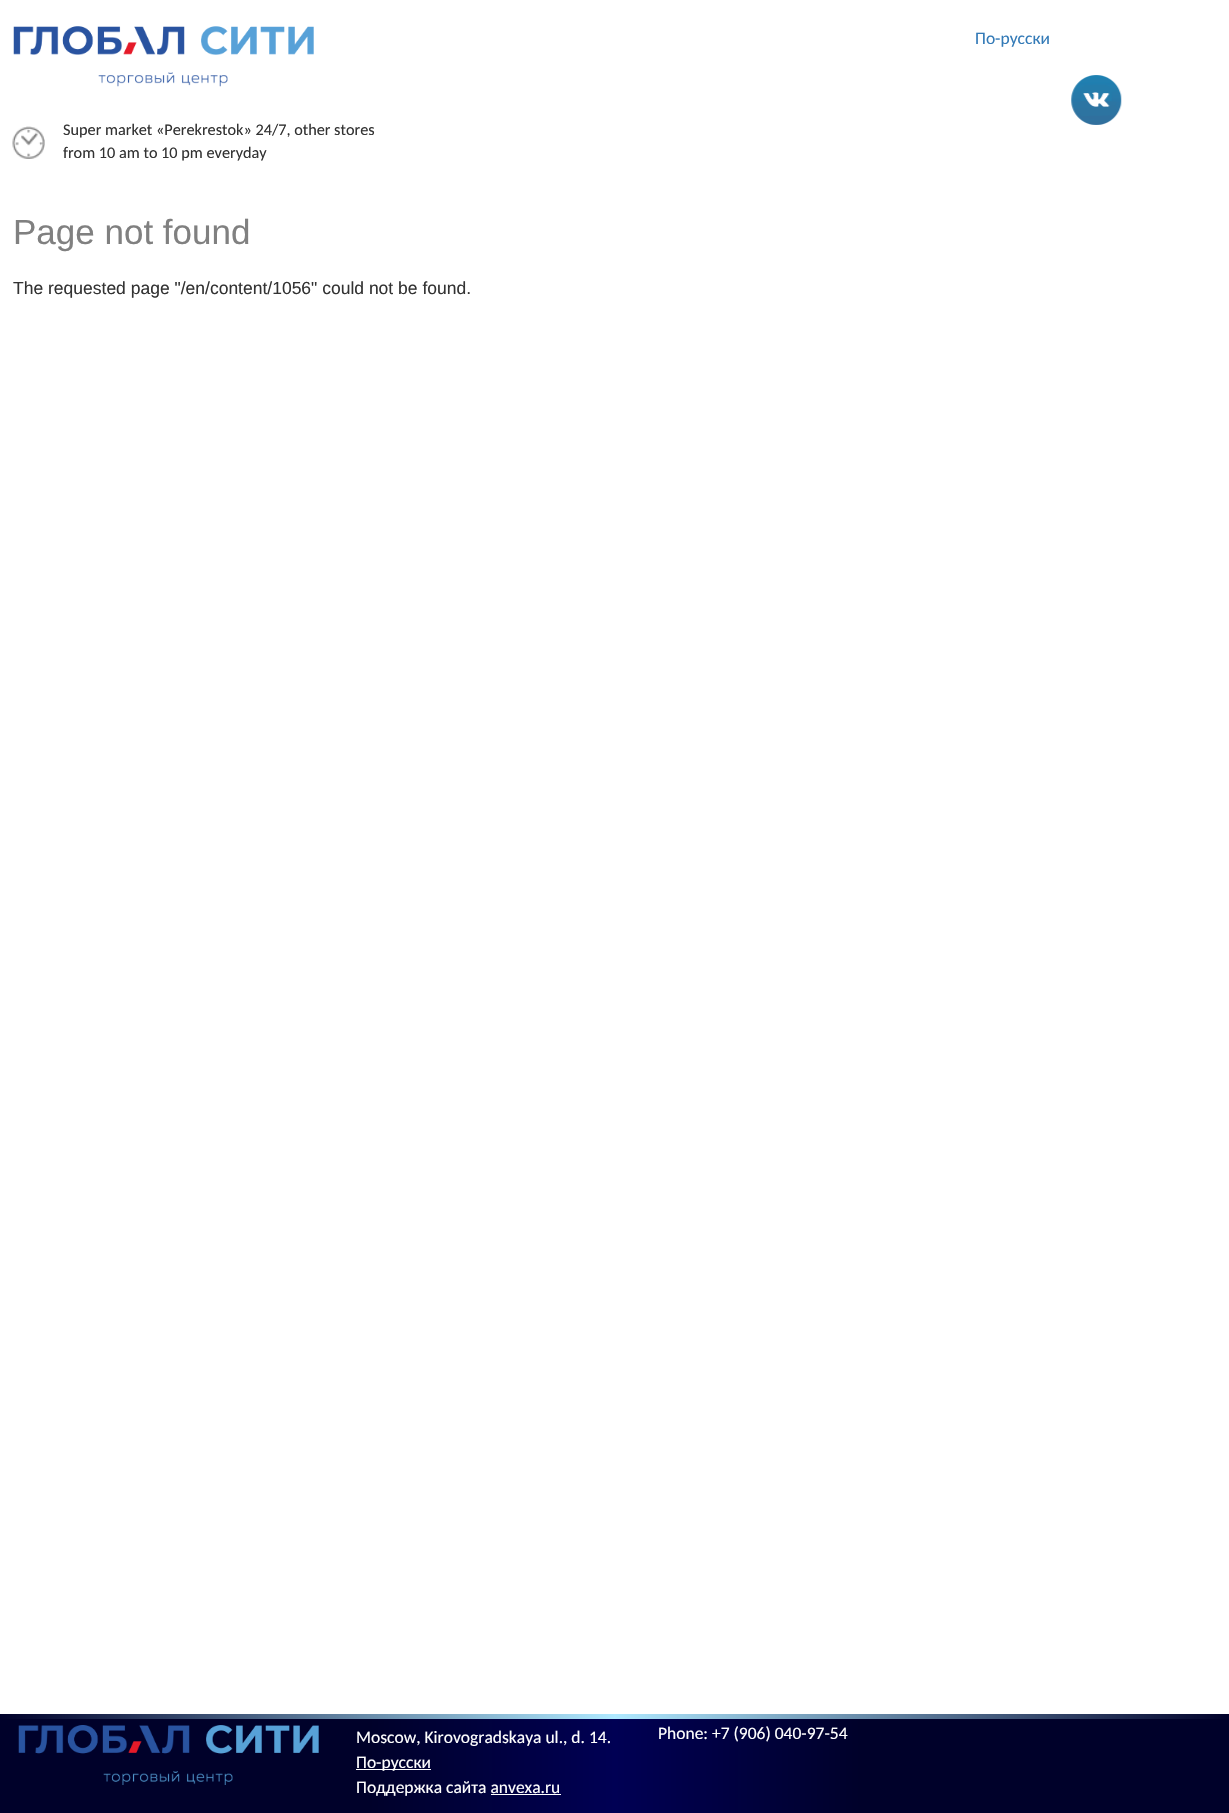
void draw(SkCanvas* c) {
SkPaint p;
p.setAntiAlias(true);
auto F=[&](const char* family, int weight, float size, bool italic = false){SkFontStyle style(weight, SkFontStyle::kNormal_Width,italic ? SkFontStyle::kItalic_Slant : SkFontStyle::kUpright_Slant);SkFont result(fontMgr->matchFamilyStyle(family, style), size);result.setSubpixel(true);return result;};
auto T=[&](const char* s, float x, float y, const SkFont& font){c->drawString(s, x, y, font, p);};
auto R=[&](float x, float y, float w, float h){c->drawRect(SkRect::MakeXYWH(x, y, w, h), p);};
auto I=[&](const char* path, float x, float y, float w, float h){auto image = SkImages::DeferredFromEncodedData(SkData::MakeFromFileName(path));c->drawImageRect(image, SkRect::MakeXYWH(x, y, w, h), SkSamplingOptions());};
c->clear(0xffffffff);
I("1.png",13,26,301,61);
auto f1 = F("Carlito",400,17.5);
p.setColor(0xff337ab7);
T("По-русски",975,44,f1);
I("2.png",1071,75,51,50);
I("3.png",12,126,33,33);
auto f2 = F("Carlito",400,16.25);
p.setColor(0xff333333);
T("Super market «Perekrestok» 24/7, other stores",63,135,f2);
T("from 10 am to 10 pm everyday",63,158,f2);
auto f3 = F("Liberation Sans",400,35);
p.setColor(0xff808080);
T("Page not found",13,244,f3);
auto f4 = F("Liberation Sans",400,17.5);
p.setColor(0xff333333);
T("The requested page \"/en/content/1056\" could not be found.",13,294,f4);
{
const SkColor colors[] = {0xff00012a,0xff000054,0xff00012a};
const float stops[] = {.3,.5,.7};
const SkPoint ends[] = {{0,1764}, {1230,1764}};
p.setShader(SkGradientShader::MakeLinear(ends, colors, stops, 3, SkTileMode::kClamp));
p.setAlpha(255);
}
R(0,1719,1229,94);
{
const SkColor colors[] = {0xff00012a,0xffafe9ff,0xff00012a};
const float stops[] = {0,.5,1};
const SkPoint ends[] = {{0,1716}, {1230,1716}};
p.setShader(SkGradientShader::MakeLinear(ends, colors, stops, 3, SkTileMode::kClamp));
p.setAlpha(255);
}
R(0,1714,1229,5);
I("4.png",18,1725,301,60);
p.setShader(nullptr);
p.setColor(0xffffffff);
T("Moscow, Kirovogradskaya ul., d. 14.",356,1743,f1);
R(356,1769,75,1);
T("По-русски",356,1768,f1);
T("Поддержка сайта anvexa.ru",356,1793,f1);
R(491,1794,70,1);
T("Phone: +7 (906) 040-97-54",658,1739,f1);
}
